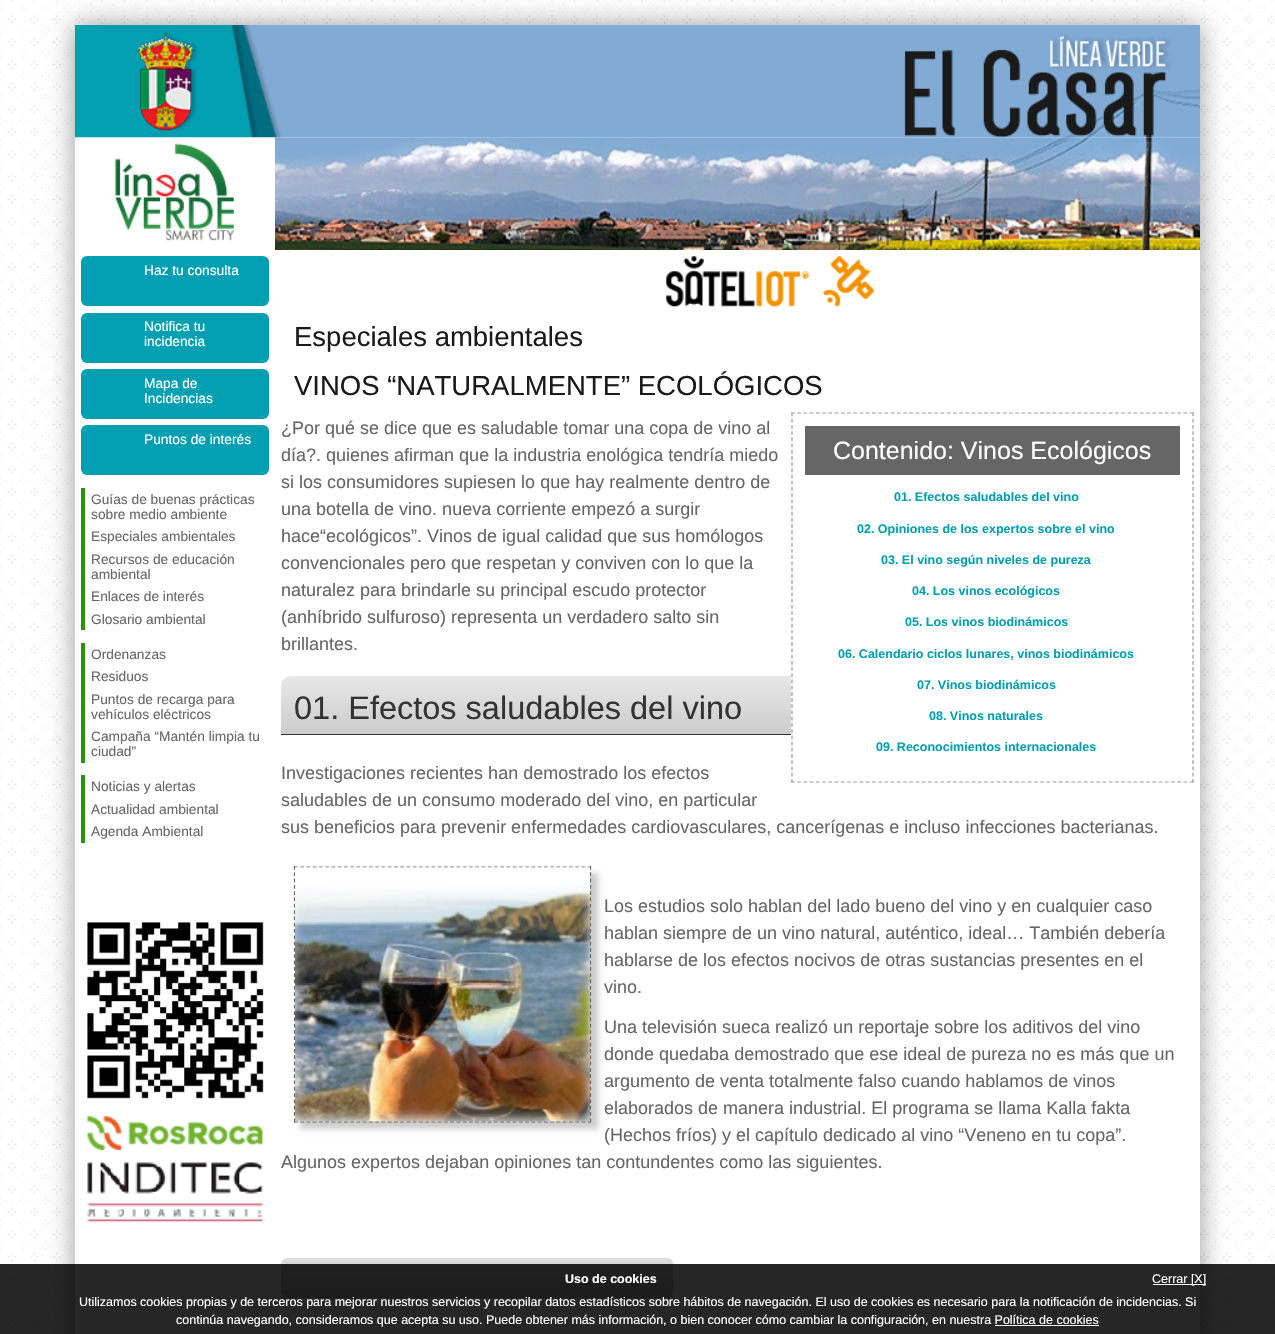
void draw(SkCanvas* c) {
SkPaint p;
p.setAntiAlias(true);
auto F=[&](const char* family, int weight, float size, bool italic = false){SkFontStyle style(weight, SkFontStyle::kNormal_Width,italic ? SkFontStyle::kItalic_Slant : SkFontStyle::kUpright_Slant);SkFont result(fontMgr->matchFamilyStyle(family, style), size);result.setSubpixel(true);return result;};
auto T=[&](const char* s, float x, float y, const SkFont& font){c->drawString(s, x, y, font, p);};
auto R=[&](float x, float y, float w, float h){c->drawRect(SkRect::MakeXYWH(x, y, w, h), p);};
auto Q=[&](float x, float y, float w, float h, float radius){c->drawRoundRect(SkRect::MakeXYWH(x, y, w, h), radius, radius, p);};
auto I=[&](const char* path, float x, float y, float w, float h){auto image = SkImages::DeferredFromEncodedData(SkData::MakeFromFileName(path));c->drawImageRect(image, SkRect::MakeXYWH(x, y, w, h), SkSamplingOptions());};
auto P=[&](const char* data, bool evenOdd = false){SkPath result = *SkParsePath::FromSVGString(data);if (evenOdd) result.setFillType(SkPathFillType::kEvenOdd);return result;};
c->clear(0xffffffff);
I("1.png",0,0,1275,1334);
p.setColor(0x66000000);
p.setMaskFilter(SkMaskFilter::MakeBlur(kNormal_SkBlurStyle, 12.5));
c->drawRect(SkRect::MakeXYWH(75,25,1125,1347),p);
p.setMaskFilter(nullptr);
p.setColor(0xffffffff);
R(75,137,1125,1197);
I("2.png",75,25,1125,113);
I("3.png",75,137,200,104);
I("4.png",275,137,925,113);
I("5.png",666,256,208,51);
p.setColor(0xff029fb2);
Q(81,256,188,50,6);
auto f1 = F("Liberation Sans",400,13.75);
p.setColor(0xffffffff);
T("Haz tu consulta",144,275,f1);
p.setColor(0xff029fb2);
Q(81,313,188,50,6);
p.setColor(0xffffffff);
T("Notifica tu",144,331,f1);
T("incidencia",144,346,f1);
p.setColor(0xff029fb2);
Q(81,369,188,50,6);
p.setColor(0xffffffff);
T("Mapa de",144,388,f1);
T("Incidencias",144,403,f1);
p.setColor(0xff029fb2);
Q(81,425,188,50,6);
p.setColor(0xffffffff);
T("Puntos de interés",144,444,f1);
p.setColor(0xff259603);
R(81,488,4,142);
p.setColor(0xff666666);
T("Guías de buenas prácticas",91,504,f1);
T("sobre medio ambiente",91,519,f1);
T("Especiales ambientales",91,541,f1);
T("Recursos de educación",91,564,f1);
T("ambiental",91,579,f1);
T("Enlaces de interés",91,601,f1);
T("Glosario ambiental",91,624,f1);
p.setColor(0xff259603);
R(81,643,4,120);
p.setColor(0xff666666);
T("Ordenanzas",91,659,f1);
T("Residuos",91,681,f1);
T("Puntos de recarga para",91,704,f1);
T("vehículos eléctricos",91,719,f1);
T("Campaña “Mantén limpia tu",91,741,f1);
T("ciudad”",91,756,f1);
p.setColor(0xff259603);
R(81,775,4,68);
p.setColor(0xff666666);
T("Noticias y alertas",91,791,f1);
T("Actualidad ambiental",91,814,f1);
T("Agenda Ambiental",91,836,f1);
I("6.png",87,922,177,177);
I("7.png",87,1116,176,34);
I("8.png",87,1162,176,61);
auto f2 = F("Liberation Sans",400,27.5);
p.setColor(0xff1a1a1a);
T("Especiales ambientales",294,346,f2);
T("VINOS “NATURALMENTE” ECOLÓGICOS",294,395,f2);
auto f3 = F("Liberation Sans",400,18);
p.setColor(0xff666666);
T("¿Por qué se dice que es saludable tomar una copa de vino al",281,434,f3);
T("día?. quienes afirman que la industria enológica tendría miedo",281,461,f3);
T("si los consumidores supiesen lo que hay realmente dentro de",281,488,f3);
T("una botella de vino. nueva corriente empezó a surgir",281,515,f3);
T("hace“ecológicos”. Vinos de igual calidad que sus homólogos",281,542,f3);
T("convencionales pero que respetan y conviven con lo que la",281,569,f3);
T("naturalez para brindarle su principal escudo protector",281,596,f3);
T("(anhíbrido sulfuroso) representa un verdadero salto sin",281,623,f3);
T("brillantes.",281,650,f3);
{
const SkColor colors[] = {0xffe8e8e8,0xffcccccc};
const float stops[] = {0,1};
const SkPoint ends[] = {{738,676}, {738,734}};
p.setShader(SkGradientShader::MakeLinear(ends, colors, stops, 2, SkTileMode::kClamp));
p.setAlpha(255);
}
c->drawPath(P("M291 676h893c5.5 0 10 4.5 10 10v48h-913v-48c0-5.5 4.5-10 10-10z"),p);
p.setShader(nullptr);
p.setColor(0xffffffff);
R(791,676,403,58);
p.setStroke(true);
p.setStrokeWidth(1.2);
p.setColor(0xff999999);
p.setPathEffect(SkDashPathEffect::Make({{3.75f,2.48f}}, 0));
c->drawPath(P("M791 413h403"),p);
p.setPathEffect(nullptr);
p.setPathEffect(SkDashPathEffect::Make({{3.75f,2.46f}}, 0));
c->drawPath(P("M1193 412.5v370"),p);
p.setPathEffect(nullptr);
p.setPathEffect(SkDashPathEffect::Make({{3.75f,2.48f}}, 0));
c->drawPath(P("M791 782h403"),p);
p.setPathEffect(nullptr);
p.setPathEffect(SkDashPathEffect::Make({{3.75f,2.46f}}, 0));
c->drawPath(P("M792 412.5v370"),p);
p.setPathEffect(nullptr);
p.setStroke(false);
p.setColor(0xff666666);
R(805,426,375,49);
auto f4 = F("Liberation Sans",400,25);
p.setColor(0xffffffff);
T("Contenido: Vinos Ecológicos",833,459,f4);
auto f5 = F("Liberation Sans",700,12.5);
p.setColor(0xff029fb2);
T("01. Efectos saludables del vino",894,501,f5);
T("02. Opiniones de los expertos sobre el vino",857,533,f5);
T("03. El vino según niveles de pureza",881,564,f5);
T("04. Los vinos ecológicos",912,595,f5);
T("05. Los vinos biodinámicos",905,626,f5);
T("06. Calendario ciclos lunares, vinos biodinámicos",838,658,f5);
T("07. Vinos biodinámicos",917,689,f5);
T("08. Vinos naturales",929,720,f5);
T("09. Reconocimientos internacionales",876,751,f5);
p.setColor(0xff333333);
R(281,734,510,1);
auto f6 = F("Liberation Sans",400,32.5);
T("01. Efectos saludables del vino",294,719,f6);
p.setColor(0xff666666);
T("Investigaciones recientes han demostrado los efectos",281,779,f3);
T("saludables de un consumo moderado del vino, en particular",281,806,f3);
T("sus beneficios para prevenir enfermedades cardiovasculares, cancerígenas e incluso infecciones bacterianas.",281,833,f3);
p.setColor(0xffcccccc);
p.setMaskFilter(SkMaskFilter::MakeBlur(kNormal_SkBlurStyle, 3));
c->drawRect(SkRect::MakeXYWH(300,873,298,256),p);
p.setMaskFilter(nullptr);
p.setStroke(true);
p.setColor(0xff666666);
p.setPathEffect(SkDashPathEffect::Make({{3.75f,2.5f}}, 0));
c->drawPath(P("M294 867h297"),p);
p.setPathEffect(nullptr);
p.setPathEffect(SkDashPathEffect::Make({{3.75f,2.56f}}, 0));
c->drawPath(P("M590.5 866v256.5"),p);
p.setPathEffect(nullptr);
p.setPathEffect(SkDashPathEffect::Make({{3.75f,2.5f}}, 0));
c->drawPath(P("M294 1122h297"),p);
p.setPathEffect(nullptr);
p.setPathEffect(SkDashPathEffect::Make({{3.75f,2.56f}}, 0));
c->drawPath(P("M294.5 866v256.5"),p);
p.setPathEffect(nullptr);
I("9.png",295,867,295,255);
p.setStroke(false);
T("Los estudios solo hablan del lado bueno del vino y en cualquier caso",604,912,f3);
T("hablan siempre de un vino natural, auténtico, ideal… También debería",604,939,f3);
T("hablarse de los efectos nocivos de otras sustancias presentes en el",604,966,f3);
T("vino.",604,993,f3);
T("Una televisión sueca realizó un reportaje sobre los aditivos del vino",604,1033,f3);
T("donde quedaba demostrado que ese ideal de pureza no es más que un",604,1060,f3);
T("argumento de venta totalmente falso cuando hablamos de vinos",604,1087,f3);
T("elaborados de manera industrial. El programa se llama Kalla fakta",604,1114,f3);
T("(Hechos fríos) y el capítulo dedicado al vino “Veneno en tu copa”.",604,1141,f3);
T("Algunos expertos dejaban opiniones tan contundentes como las siguientes.",281,1168,f3);
{
const SkColor colors[] = {0xffdedede,0xffbcbcbc};
const float stops[] = {0,1};
const SkPoint ends[] = {{477,1258}, {477,1298}};
p.setShader(SkGradientShader::MakeLinear(ends, colors, stops, 2, SkTileMode::kClamp));
p.setAlpha(255);
}
Q(281,1258,392,40,6);
p.setShader(nullptr);
p.setColor(0xd9000000);
R(0,1264,1275,70);
p.setColor(0xffffffff);
T("Uso de cookies",565,1283,f5);
R(1153,1284,53,1);
auto f7 = F("Liberation Sans",400,12.5);
T("Cerrar [X]",1152,1283,f7);
T("Utilizamos cookies propias y de terceros para mejorar nuestros servicios y recopilar datos estadísticos sobre hábitos de navegación. El uso de cookies es necesario para la notificación de incidencias. Si",79,1306,f7);
T("continúa navegando, consideramos que acepta su uso. Puede obtener más información, o bien conocer cómo cambiar la configuración, en nuestra Política de cookies",176,1324,f7);
R(995,1325,104,1);
}
